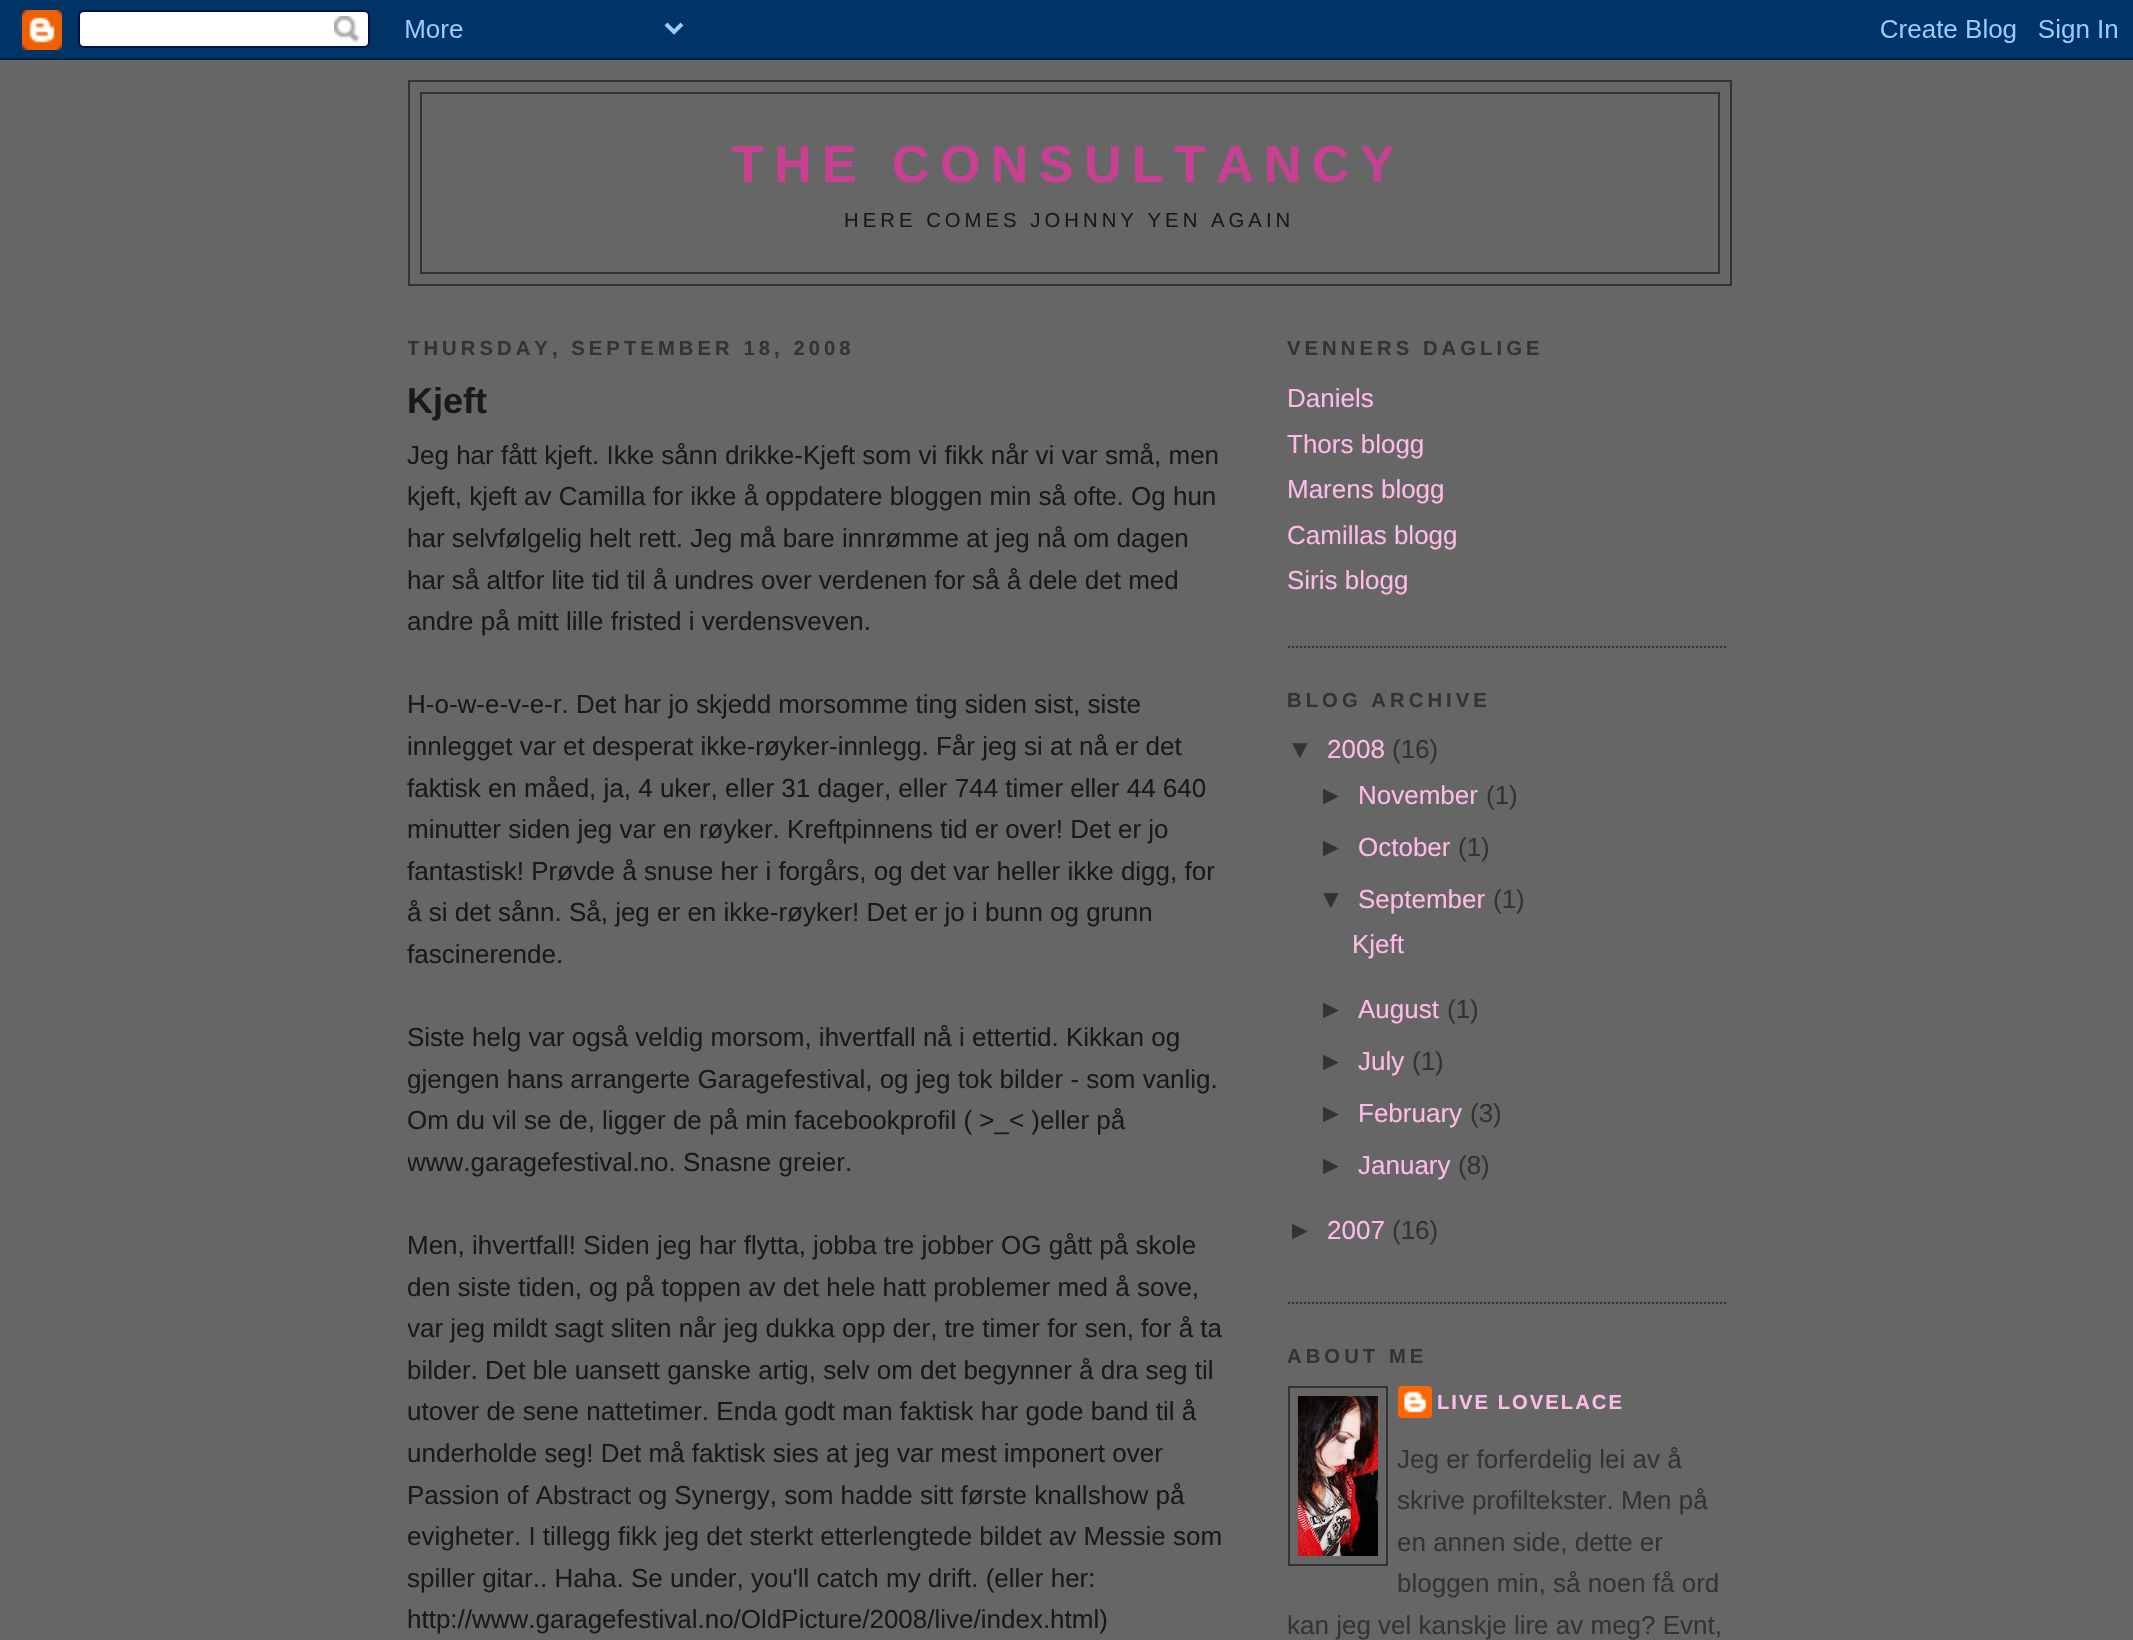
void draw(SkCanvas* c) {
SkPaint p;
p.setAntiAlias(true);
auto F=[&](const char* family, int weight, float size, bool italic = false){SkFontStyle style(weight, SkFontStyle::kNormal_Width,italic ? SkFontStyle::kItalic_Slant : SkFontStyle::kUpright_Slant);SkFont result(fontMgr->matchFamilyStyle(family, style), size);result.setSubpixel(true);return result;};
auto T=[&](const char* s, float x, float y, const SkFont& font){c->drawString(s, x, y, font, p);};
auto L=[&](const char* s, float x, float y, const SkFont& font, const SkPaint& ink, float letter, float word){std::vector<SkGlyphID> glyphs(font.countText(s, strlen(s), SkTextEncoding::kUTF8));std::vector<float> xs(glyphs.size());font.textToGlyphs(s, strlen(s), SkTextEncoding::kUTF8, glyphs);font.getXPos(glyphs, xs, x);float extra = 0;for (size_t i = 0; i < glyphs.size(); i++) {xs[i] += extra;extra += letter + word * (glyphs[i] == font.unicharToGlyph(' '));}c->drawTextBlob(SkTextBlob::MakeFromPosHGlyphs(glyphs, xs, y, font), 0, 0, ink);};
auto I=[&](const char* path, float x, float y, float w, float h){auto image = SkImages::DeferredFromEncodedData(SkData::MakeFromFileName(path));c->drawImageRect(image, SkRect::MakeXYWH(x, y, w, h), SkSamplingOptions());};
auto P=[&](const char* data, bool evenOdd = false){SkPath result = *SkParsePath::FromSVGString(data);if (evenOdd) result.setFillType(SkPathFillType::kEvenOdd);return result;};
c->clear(0xff666666);
I("1.png",0,0,2133,60);
p.setStroke(true);
p.setStrokeWidth(2);
p.setColor(0xff333333);
c->drawRect(SkRect::MakeXYWH(409,81,1322,204),p);
c->drawRect(SkRect::MakeXYWH(421,93,1298,180),p);
auto f1 = F("Liberation Sans",700,52);
p.setStroke(false);
p.setColor(0xffc94093);
L("THE CONSULTANCY",732,182,f1,p,10.4,0);
auto f2 = F("Liberation Sans",400,20.25);
p.setColor(0xff191919);
L("HERE COMES JOHNNY YEN AGAIN",844,227,f2,p,4.05,0);
c->save();
c->clipRect(SkRect::MakeXYWH(408,306,820,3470));
auto f3 = F("Liberation Sans",700,20.25);
p.setColor(0xff333333);
L("THURSDAY, SEPTEMBER 18, 2008",407,355,f3,p,4.05,0);
c->restore();
auto f4 = F("Liberation Sans",700,36);
p.setColor(0xff191919);
T("Kjeft",407,413,f4);
auto f5 = F("Liberation Sans",400,26);
T("Jeg har fått kjeft. Ikke sånn drikke-Kjeft som vi fikk når vi var små, men",407,464,f5);
T("kjeft, kjeft av Camilla for ikke å oppdatere bloggen min så ofte. Og hun",407,505,f5);
T("har selvfølgelig helt rett. Jeg må bare innrømme at jeg nå om dagen",407,547,f5);
T("har så altfor lite tid til å undres over verdenen for så å dele det med",407,589,f5);
T("andre på mitt lille fristed i verdensveven.",407,630,f5);
T("H-o-w-e-v-e-r. Det har jo skjedd morsomme ting siden sist, siste",407,713,f5);
T("innlegget var et desperat ikke-røyker-innlegg. Får jeg si at nå er det",407,755,f5);
T("faktisk en måed, ja, 4 uker, eller 31 dager, eller 744 timer eller 44 640",407,797,f5);
T("minutter siden jeg var en røyker. Kreftpinnens tid er over! Det er jo",407,838,f5);
T("fantastisk! Prøvde å snuse her i forgårs, og det var heller ikke digg, for",407,880,f5);
T("å si det sånn. Så, jeg er en ikke-røyker! Det er jo i bunn og grunn",407,921,f5);
T("fascinerende.",407,963,f5);
T("Siste helg var også veldig morsom, ihvertfall nå i ettertid. Kikkan og",407,1046,f5);
T("gjengen hans arrangerte Garagefestival, og jeg tok bilder - som vanlig.",407,1088,f5);
T("Om du vil se de, ligger de på min facebookprofil ( >_< )eller på",407,1129,f5);
c->save();
c->clipRect(SkRect::MakeXYWH(408,306,820,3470));
T("www.garagefestival.no. Snasne greier.",407,1171,f5);
c->restore();
T("Men, ihvertfall! Siden jeg har flytta, jobba tre jobber OG gått på skole",407,1254,f5);
T("den siste tiden, og på toppen av det hele hatt problemer med å sove,",407,1296,f5);
c->save();
c->clipRect(SkRect::MakeXYWH(408,306,820,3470));
T("var jeg mildt sagt sliten når jeg dukka opp der, tre timer for sen, for å ta",407,1337,f5);
c->restore();
T("bilder. Det ble uansett ganske artig, selv om det begynner å dra seg til",407,1379,f5);
T("utover de sene nattetimer. Enda godt man faktisk har gode band til å",407,1420,f5);
T("underholde seg! Det må faktisk sies at jeg var mest imponert over",407,1462,f5);
T("Passion of Abstract og Synergy, som hadde sitt første knallshow på",407,1504,f5);
T("evigheter. I tillegg fikk jeg det sterkt etterlengtede bildet av Messie som",407,1545,f5);
T("spiller gitar.. Haha. Se under, you'll catch my drift. (eller her:",407,1587,f5);
T("http://www.garagefestival.no/OldPicture/2008/live/index.html)",407,1628,f5);
p.setStroke(true);
p.setColor(0xff333333);
p.setPathEffect(SkDashPathEffect::Make({{2,2}}, 0));
c->drawPath(P("M1288 647h440"),p);
p.setPathEffect(nullptr);
p.setStroke(false);
L("VENNERS DAGLIGE",1287,355,f3,p,4.05,0);
p.setColor(0xffffbbe8);
T("Daniels",1287,407,f5);
T("Thors blogg",1287,453,f5);
T("Marens blogg",1287,498,f5);
T("Camillas blogg",1287,544,f5);
T("Siris blogg",1287,589,f5);
p.setStroke(true);
p.setColor(0xff333333);
p.setPathEffect(SkDashPathEffect::Make({{2,2}}, 0));
c->drawPath(P("M1288 1303h440"),p);
p.setPathEffect(nullptr);
p.setStroke(false);
L("BLOG ARCHIVE",1287,707,f3,p,4.05,0);
T("▼",1287,758,f5);
p.setColor(0xffffbbe8);
T("2008",1327,758,f5);
p.setColor(0xff333333);
T("(16)",1392,758,f5);
T("►",1318,804,f5);
p.setColor(0xffffbbe8);
T("November",1358,804,f5);
p.setColor(0xff333333);
T("(1)",1486,804,f5);
T("►",1318,856,f5);
p.setColor(0xffffbbe8);
T("October",1358,856,f5);
p.setColor(0xff333333);
T("(1)",1458,856,f5);
T("▼",1318,908,f5);
p.setColor(0xffffbbe8);
T("September",1358,908,f5);
p.setColor(0xff333333);
T("(1)",1493,908,f5);
p.setColor(0xffffbbe8);
T("Kjeft",1352,953,f5);
p.setColor(0xff333333);
T("►",1318,1018,f5);
p.setColor(0xffffbbe8);
T("August",1358,1018,f5);
p.setColor(0xff333333);
T("(1)",1447,1018,f5);
T("►",1318,1070,f5);
p.setColor(0xffffbbe8);
T("July",1358,1070,f5);
p.setColor(0xff333333);
T("(1)",1412,1070,f5);
T("►",1318,1122,f5);
p.setColor(0xffffbbe8);
T("February",1358,1122,f5);
p.setColor(0xff333333);
T("(3)",1470,1122,f5);
T("►",1318,1174,f5);
p.setColor(0xffffbbe8);
T("January",1358,1174,f5);
p.setColor(0xff333333);
T("(8)",1458,1174,f5);
T("►",1287,1239,f5);
p.setColor(0xffffbbe8);
T("2007",1327,1239,f5);
p.setColor(0xff333333);
T("(16)",1392,1239,f5);
L("ABOUT ME",1287,1363,f3,p,4.05,0);
p.setStroke(true);
c->drawRect(SkRect::MakeXYWH(1289,1387,98,178),p);
I("2.png",1298,1396,80,160);
I("3.png",1398,1386,34,32);
p.setStroke(false);
p.setColor(0xffffbbe8);
L("LIVE LOVELACE",1437,1409,f3,p,2,0);
p.setColor(0xff333333);
T("Jeg er forferdelig lei av å",1397,1468,f5);
T("skrive profiltekster. Men på",1397,1509,f5);
T("en annen side, dette er",1397,1551,f5);
T("bloggen min, så noen få ord",1397,1592,f5);
T("kan jeg vel kanskje lire av meg? Evnt,",1287,1634,f5);
}
